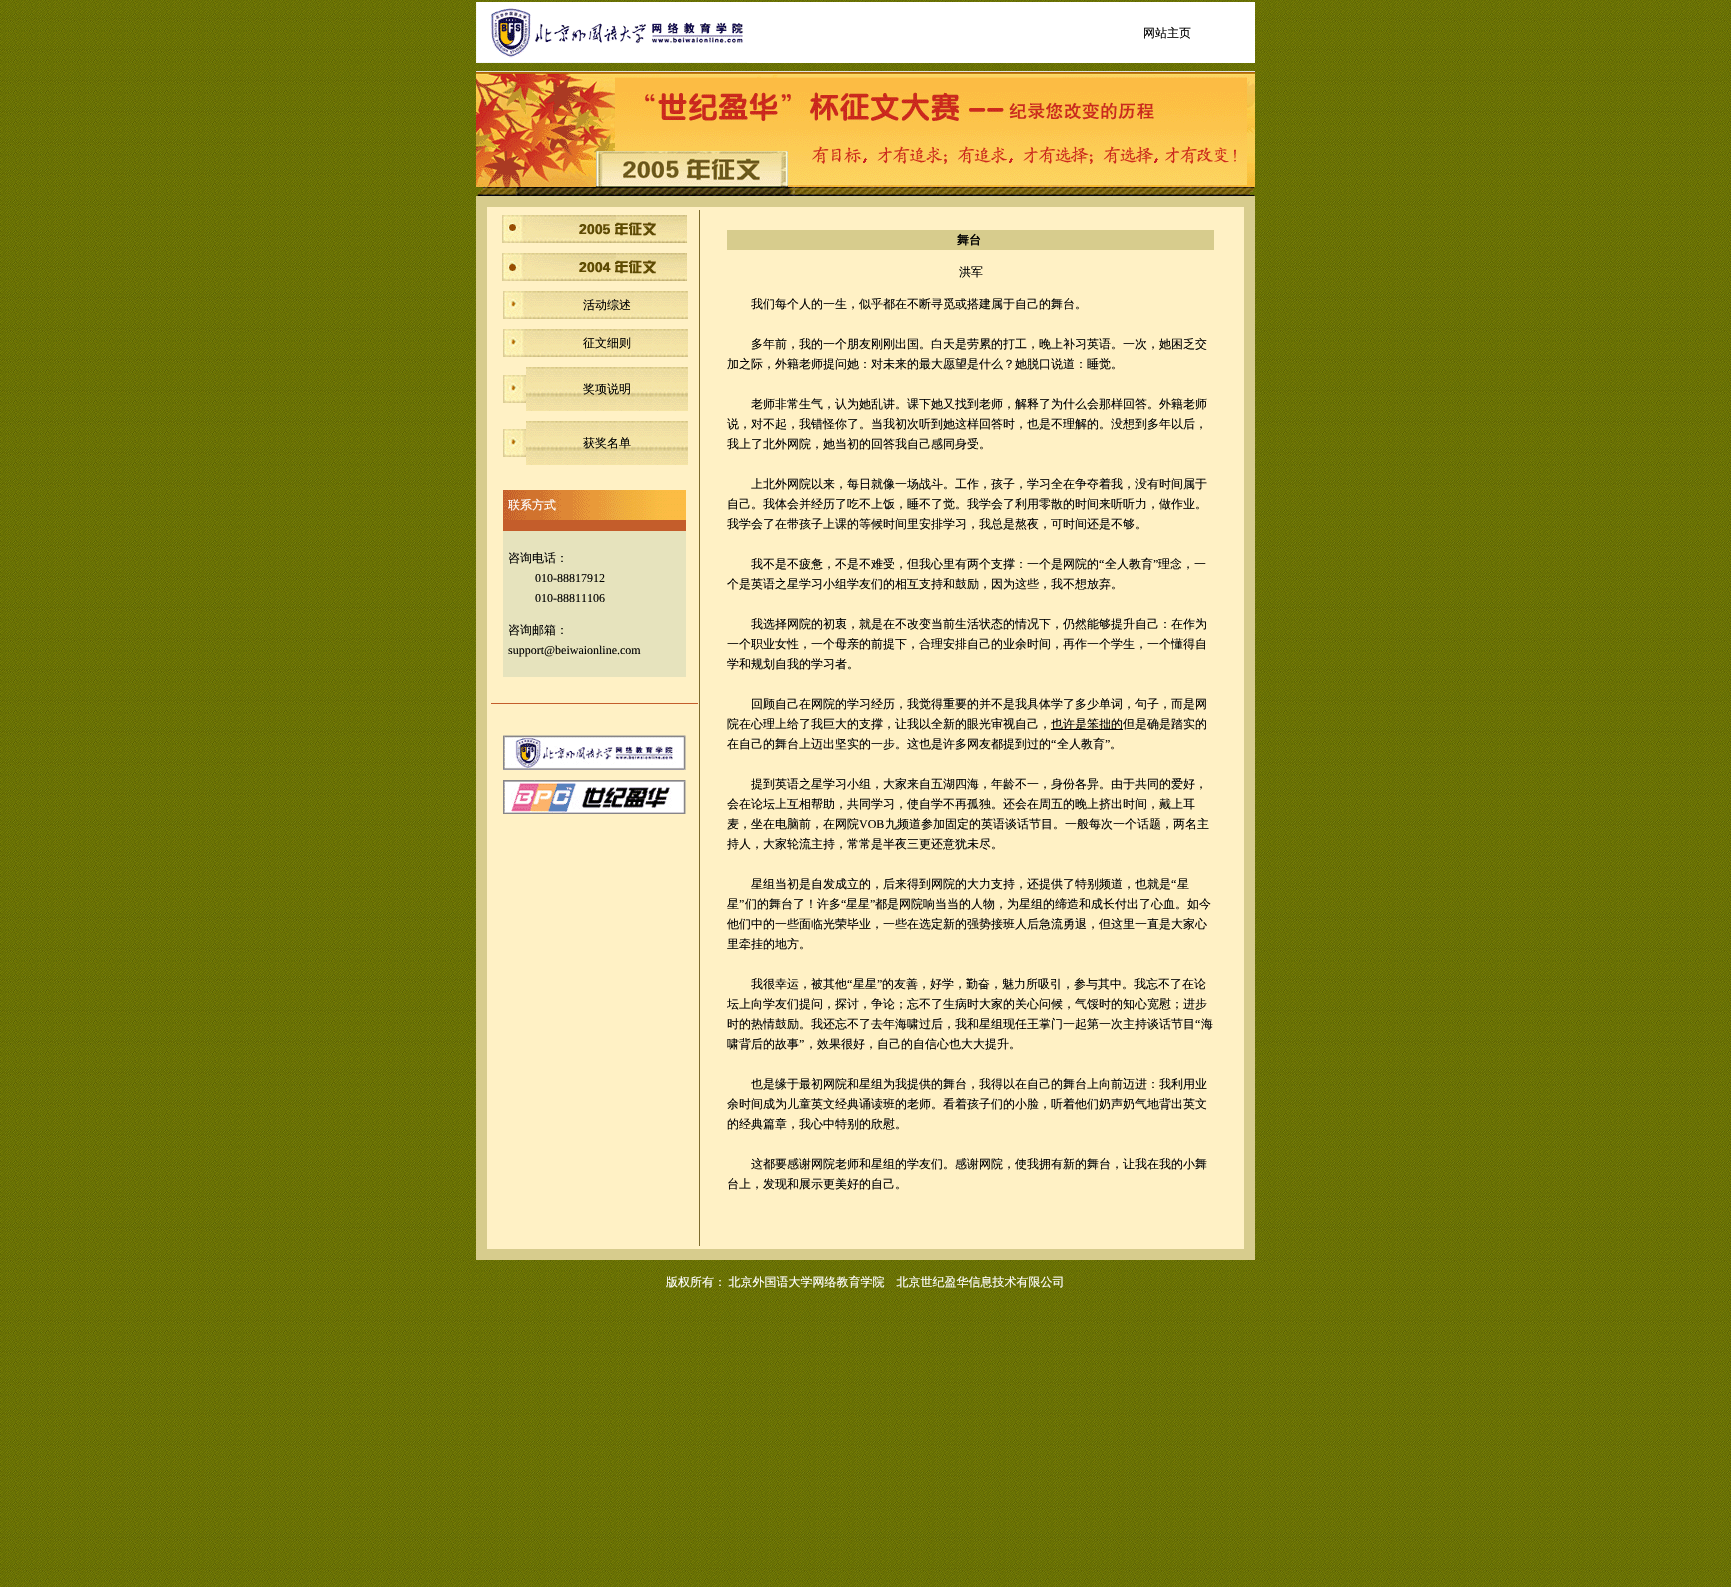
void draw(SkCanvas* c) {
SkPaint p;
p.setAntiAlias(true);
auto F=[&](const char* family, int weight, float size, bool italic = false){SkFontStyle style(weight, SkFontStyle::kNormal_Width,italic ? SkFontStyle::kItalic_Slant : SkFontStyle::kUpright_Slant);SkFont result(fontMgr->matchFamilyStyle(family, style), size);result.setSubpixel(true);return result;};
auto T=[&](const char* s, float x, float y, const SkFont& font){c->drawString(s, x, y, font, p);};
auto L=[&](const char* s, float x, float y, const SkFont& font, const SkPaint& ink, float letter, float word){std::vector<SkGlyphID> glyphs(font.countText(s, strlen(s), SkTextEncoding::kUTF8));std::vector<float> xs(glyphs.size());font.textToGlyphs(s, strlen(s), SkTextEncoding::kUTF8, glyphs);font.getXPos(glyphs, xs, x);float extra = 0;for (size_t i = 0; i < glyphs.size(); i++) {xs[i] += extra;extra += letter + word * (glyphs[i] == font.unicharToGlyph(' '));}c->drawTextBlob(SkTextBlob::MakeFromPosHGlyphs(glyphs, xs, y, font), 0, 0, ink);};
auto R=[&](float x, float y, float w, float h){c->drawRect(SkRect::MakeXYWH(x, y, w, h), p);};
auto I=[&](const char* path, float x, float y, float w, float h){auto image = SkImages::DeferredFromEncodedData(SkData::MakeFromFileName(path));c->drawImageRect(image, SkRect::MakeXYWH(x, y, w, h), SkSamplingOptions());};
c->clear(0xffffffff);
I("1.png",0,0,1731,1587);
p.setColor(0xffffffff);
R(747,2,508,61);
I("2.png",476,2,271,61);
auto f1 = F("WenQuanYi Zen Hei",500,12);
p.setColor(0xff000000);
T("网站主页",1143,37,f1);
I("3.png",476,71,779,125);
p.setStroke(true);
p.setStrokeWidth(10);
p.setColor(0xffd7cc8d);
c->drawRect(SkRect::MakeXYWH(481,201,769,1054),p);
p.setStroke(false);
p.setColor(0xfffff1c5);
c->drawRect(SkRect::MakeXYWH(486.5,206.5,758,1043),p);
p.setStroke(true);
p.setStrokeWidth(1);
p.setColor(0xffd7cc8d);
c->drawRect(SkRect::MakeXYWH(486.5,206.5,758,1043),p);
p.setStroke(false);
p.setColor(0xff7c6b2e);
R(699,210,1,1036);
I("4.png",502,215,186,28);
I("5.png",502,253,186,28);
I("6.png",502,291,24,28);
I("7.png",526,291,162,28);
p.setColor(0xff000000);
T("活动综述",583,309,f1);
I("6.png",502,329,24,28);
I("7.png",526,329,162,28);
T("征文细则",583,347,f1);
I("6.png",502,375,24,28);
I("8.png",526,367,162,44);
T("奖项说明",583,393,f1);
I("6.png",502,429,24,28);
I("8.png",526,421,162,44);
T("获奖名单",583,447,f1);
I("9.png",503,490,183,30);
p.setColor(0xffffffff);
T("联系方式",508,509,f1);
p.setColor(0xffc45d2b);
R(503,520,183,11);
p.setColor(0xffe6e3bd);
R(503,531,183,146);
p.setColor(0xff000000);
T("咨询电话：",508,562,f1);
auto f2 = F("Liberation Serif",400,12);
T("010-88817912",535,582,f2);
T("010-88811106",535,602,f2);
T("咨询邮箱：",508,634,f1);
T("support@beiwaionline.com",508,654,f2);
p.setColor(0xffc45d2b);
R(491,703,207,1);
I("10.png",503,735,183,35);
I("11.png",503,780,183,34);
p.setColor(0xffd7cc8d);
R(727,230,487,20);
auto f3 = F("WenQuanYi Zen Hei",700,12);
p.setColor(0xff000000);
T("舞台",957,244,f3);
T("洪军",959,276,f1);
T("我们每个人的一生，似乎都在不断寻觅或搭建属于自己的舞台。",751,308,f1);
T("多年前，我的一个朋友刚刚出国。白天是劳累的打工，晚上补习英语。一次，她困乏交",751,348,f1);
T("加之际，外籍老师提问她：对未来的最大愿望是什么？她脱口说道：睡觉。",727,368,f1);
T("老师非常生气，认为她乱讲。课下她又找到老师，解释了为什么会那样回答。外籍老师",751,408,f1);
T("说，对不起，我错怪你了。当我初次听到她这样回答时，也是不理解的。没想到多年以后，",727,428,f1);
T("我上了北外网院，她当初的回答我自己感同身受。",727,448,f1);
T("上北外网院以来，每日就像一场战斗。工作，孩子，学习全在争夺着我，没有时间属于",751,488,f1);
T("自己。我体会并经历了吃不上饭，睡不了觉。我学会了利用零散的时间来听听力，做作业。",727,508,f1);
T("我学会了在带孩子上课的等候时间里安排学习，我总是熬夜，可时间还是不够。",727,528,f1);
T("我不是不疲惫，不是不难受，但我心里有两个支撑：一个是网院的",751,568,f1);
T("“",1099,568,f2);
T("全人教育",1105,568,f1);
T("”",1153,568,f2);
T("理念，一",1158,568,f1);
T("个是英语之星学习小组学友们的相互支持和鼓励，因为这些，我不想放弃。",727,588,f1);
T("我选择网院的初衷，就是在不改变当前生活状态的情况下，仍然能够提升自己：在作为",751,628,f1);
T("一个职业女性，一个母亲的前提下，合理安排自己的业余时间，再作一个学生，一个懂得自",727,648,f1);
T("学和规划自我的学习者。",727,668,f1);
T("回顾自己在网院的学习经历，我觉得重要的并不是我具体学了多少单词，句子，而是网",751,708,f1);
T("院在心理上给了我巨大的支撑，让我以全新的眼光审视自己，",727,728,f1);
R(1051,729,72,1);
T("也许是笨拙的但是确是踏实的",1051,728,f1);
T("在自己的舞台上迈出坚实的一步。这也是许多网友都提到过的",727,748,f1);
T("“",1051,748,f2);
T("全人教育",1057,748,f1);
T("”",1105,748,f2);
T("。",1110,748,f1);
T("提到英语之星学习小组，大家来自五湖四海，年龄不一，身份各异。由于共同的爱好，",751,788,f1);
T("会在论坛上互相帮助，共同学习，使自学不再孤独。还会在周五的晚上挤出时间，戴上耳",727,808,f1);
T("麦，坐在电脑前，在网院",727,828,f1);
T("VOB",859,828,f2);
T("九频道参加固定的英语谈话节目。一般每次一个话题，两名主",885,828,f1);
T("持人，大家轮流主持，常常是半夜三更还意犹未尽。",727,848,f1);
T("星组当初是自发成立的，后来得到网院的大力支持，还提供了特别频道，也就是",751,888,f1);
T("“",1171,888,f2);
T("星",1177,888,f1);
T("星",727,908,f1);
T("”",739,908,f2);
T("们的舞台了！许多",745,908,f1);
T("“",841,908,f2);
T("星星",846,908,f1);
T("”",870,908,f2);
T("都是网院响当当的人物，为星组的缔造和成长付出了心血。如今",875,908,f1);
T("他们中的一些面临光荣毕业，一些在选定新的强势接班人后急流勇退，但这里一直是大家心",727,928,f1);
T("里牵挂的地方。",727,948,f1);
T("我很幸运，被其他",751,988,f1);
T("“",847,988,f2);
T("星星",853,988,f1);
T("”",877,988,f2);
T("的友善，好学，勤奋，魅力所吸引，参与其中。我忘不了在论",882,988,f1);
T("坛上向学友们提问，探讨，争论；忘不了生病时大家的关心问候，气馁时的知心宽慰；进步",727,1008,f1);
T("时的热情鼓励。我还忘不了去年海啸过后，我和星组现任王掌门一起第一次主持谈话节目",727,1028,f1);
T("“",1195,1028,f2);
T("海",1201,1028,f1);
T("啸背后的故事",727,1048,f1);
T("”",799,1048,f2);
T("，效果很好，自己的自信心也大大提升。",805,1048,f1);
T("也是缘于最初网院和星组为我提供的舞台，我得以在自己的舞台上向前迈进：我利用业",751,1088,f1);
T("余时间成为儿童英文经典诵读班的老师。看着孩子们的小脸，听着他们奶声奶气地背出英文",727,1108,f1);
T("的经典篇章，我心中特别的欣慰。",727,1128,f1);
T("这都要感谢网院老师和星组的学友们。感谢网院，使我拥有新的舞台，让我在我的小舞",751,1168,f1);
T("台上，发现和展示更美好的自己。",727,1188,f1);
p.setColor(0xffffffff);
L("版权所有： 北京外国语大学网络教育学院　北京世纪盈华信息技术有限公司",666,1286,f1,p,0,-1);
}
